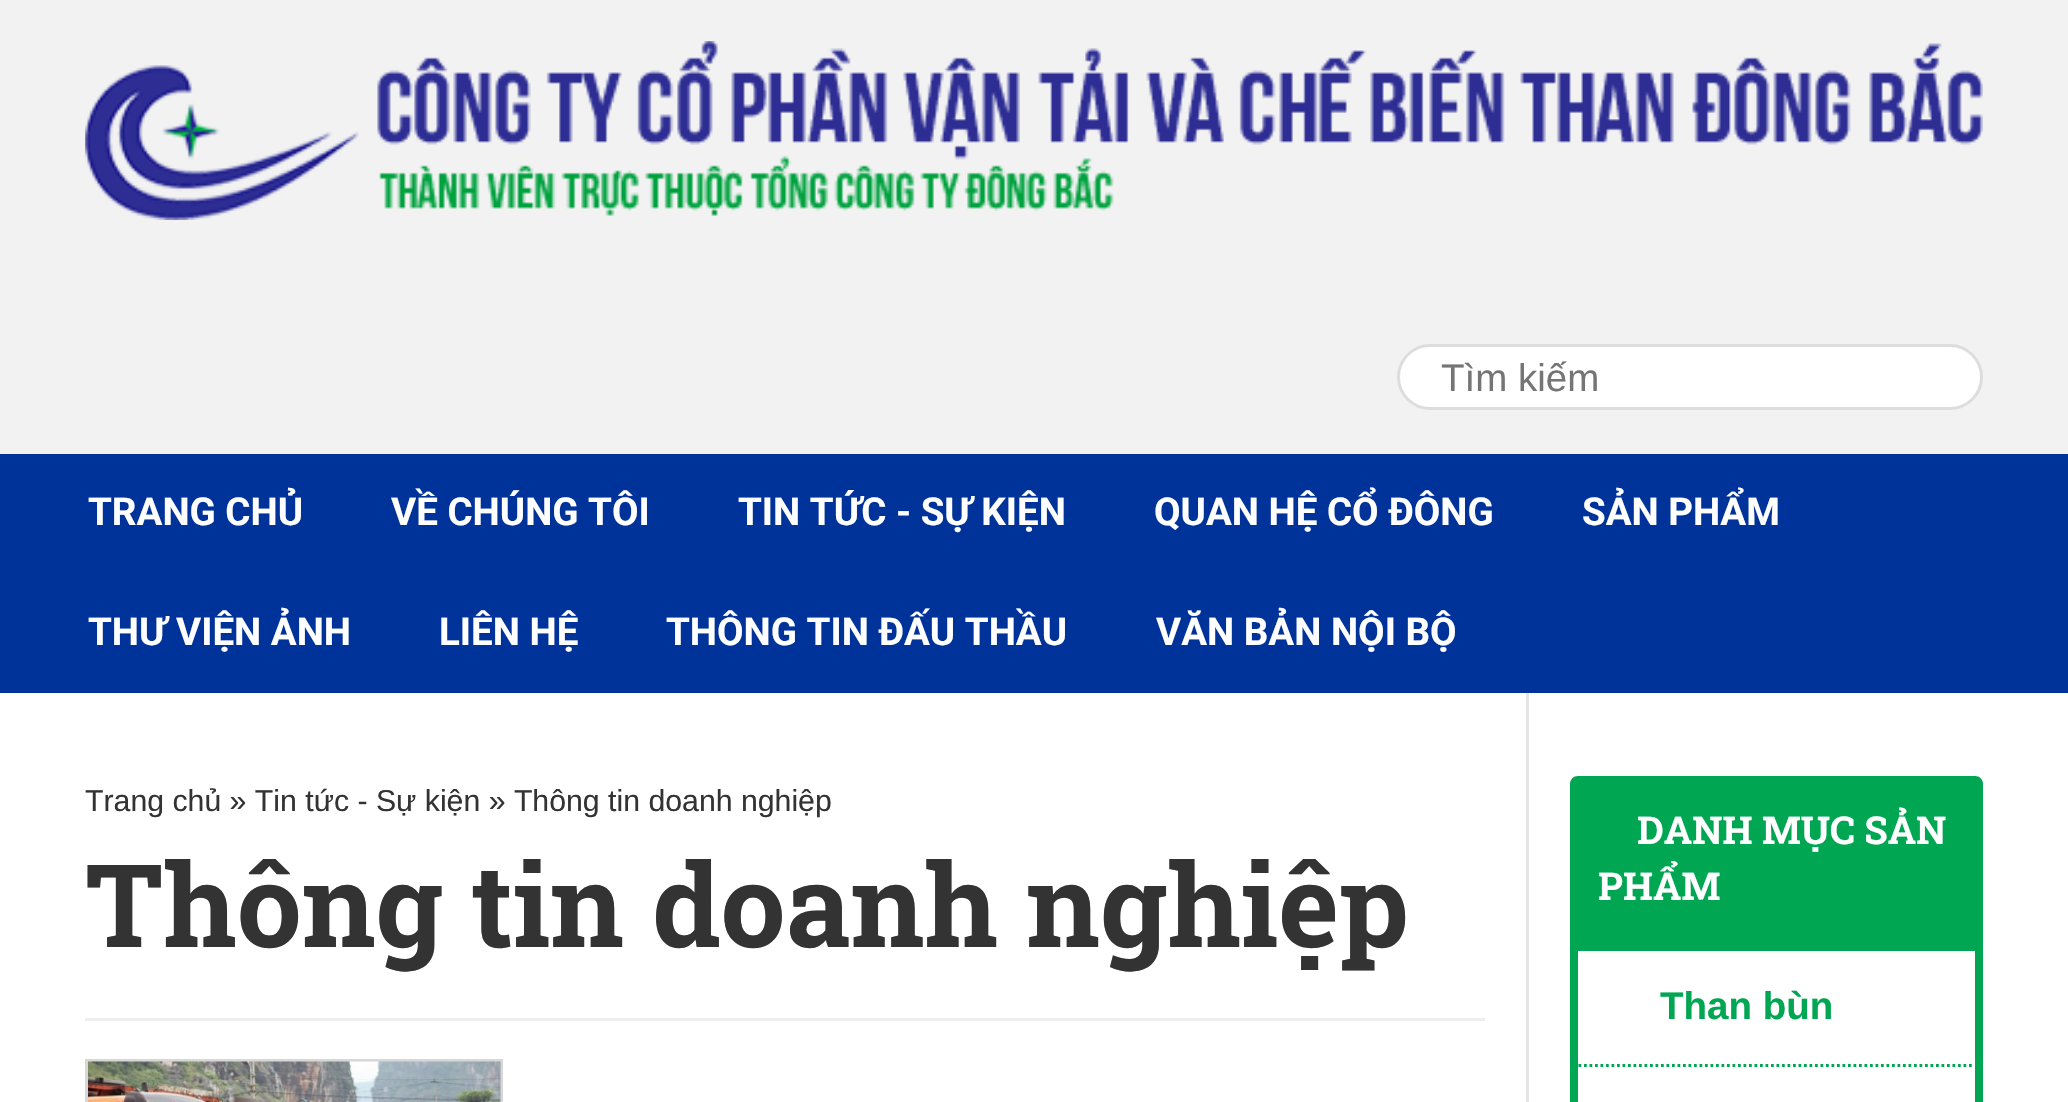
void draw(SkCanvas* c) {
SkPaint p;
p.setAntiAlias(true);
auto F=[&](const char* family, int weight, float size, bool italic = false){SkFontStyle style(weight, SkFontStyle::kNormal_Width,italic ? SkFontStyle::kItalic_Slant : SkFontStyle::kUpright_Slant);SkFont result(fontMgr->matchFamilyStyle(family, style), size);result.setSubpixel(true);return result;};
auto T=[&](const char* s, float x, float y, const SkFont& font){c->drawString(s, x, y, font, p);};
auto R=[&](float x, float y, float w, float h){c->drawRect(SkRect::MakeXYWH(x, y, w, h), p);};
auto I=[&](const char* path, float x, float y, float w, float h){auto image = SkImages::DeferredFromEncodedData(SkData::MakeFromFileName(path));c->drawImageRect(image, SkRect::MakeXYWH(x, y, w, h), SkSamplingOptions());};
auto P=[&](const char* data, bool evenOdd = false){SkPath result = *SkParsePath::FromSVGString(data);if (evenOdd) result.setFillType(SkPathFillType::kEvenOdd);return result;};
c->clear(0xffffffff);
p.setColor(0xfff2f2f2);
R(0,0,2068,454);
I("1.png",85,41,1898,179);
p.setColor(0xffffffff);
c->drawRoundRect(SkRect::MakeXYWH(1398.5,345.5,583,63),31.5,31.5,p);
p.setStroke(true);
p.setStrokeWidth(3);
p.setColor(0xffdddddd);
c->drawRoundRect(SkRect::MakeXYWH(1398.5,345.5,583,63),31.5,31.5,p);
auto f1 = F("Liberation Sans",400,38.5);
p.setStroke(false);
p.setColor(0xff757575);
T("Tìm kiếm",1441,391,f1);
p.setColor(0xff003399);
R(0,454,2068,239);
auto f2 = F("Roboto",700,38.5);
p.setColor(0xffffffff);
T("TRANG CHỦ",88,525,f2);
T("VỀ CHÚNG TÔI",391,525,f2);
T("TIN TỨC - SỰ KIỆN",738,525,f2);
T("QUAN HỆ CỔ ĐÔNG",1154,525,f2);
T("SẢN PHẨM",1582,525,f2);
T("THƯ VIỆN ẢNH",88,645,f2);
T("LIÊN HỆ",439,645,f2);
T("THÔNG TIN ĐẤU THẦU",666,645,f2);
T("VĂN BẢN NỘI BỘ",1156,645,f2);
p.setColor(0xffe5e5e5);
R(1526,693,3,409);
auto f3 = F("Liberation Sans",400,30.25);
p.setColor(0xff333333);
T("Trang chủ » Tin tức - Sự kiện » Thông tin doanh nghiệp",85,811,f3);
auto f4 = F("Roboto Slab",700,115.5);
T("Thông tin doanh nghiệp",85,947,f4);
p.setColor(0xffeeeeee);
R(85,1018,1400,3);
p.setStroke(true);
p.setColor(0xffd7d7d7);
c->drawRect(SkRect::MakeXYWH(86.5,1060.5,415,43),p);
I("2.png",88,1061,413,41);
p.setStroke(false);
p.setColor(0xff00a651);
c->drawPath(P("M1578 776h397c4.5 0 8 3.5 8 8v159h-413v-159c0-4.5 3.5-8 8-8z"),p);
auto f5 = F("Roboto Slab",700,38.5);
p.setColor(0xffffffff);
T("DANH MỤC SẢN",1637,844,f5);
T("PHẨM",1598,900,f5);
p.setStroke(true);
p.setStrokeWidth(8);
p.setColor(0xff00a651);
c->drawRect(SkRect::MakeXYWH(1574,947,405,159),p);
p.setStrokeWidth(2.8);
p.setPathEffect(SkDashPathEffect::Make({{2.75f,2.75f}}, 0));
c->drawPath(P("M1578.5 1065.5h396"),p);
p.setPathEffect(nullptr);
auto f6 = F("Liberation Sans",700,38.5);
p.setStroke(false);
T("Than bùn",1660,1019,f6);
}
